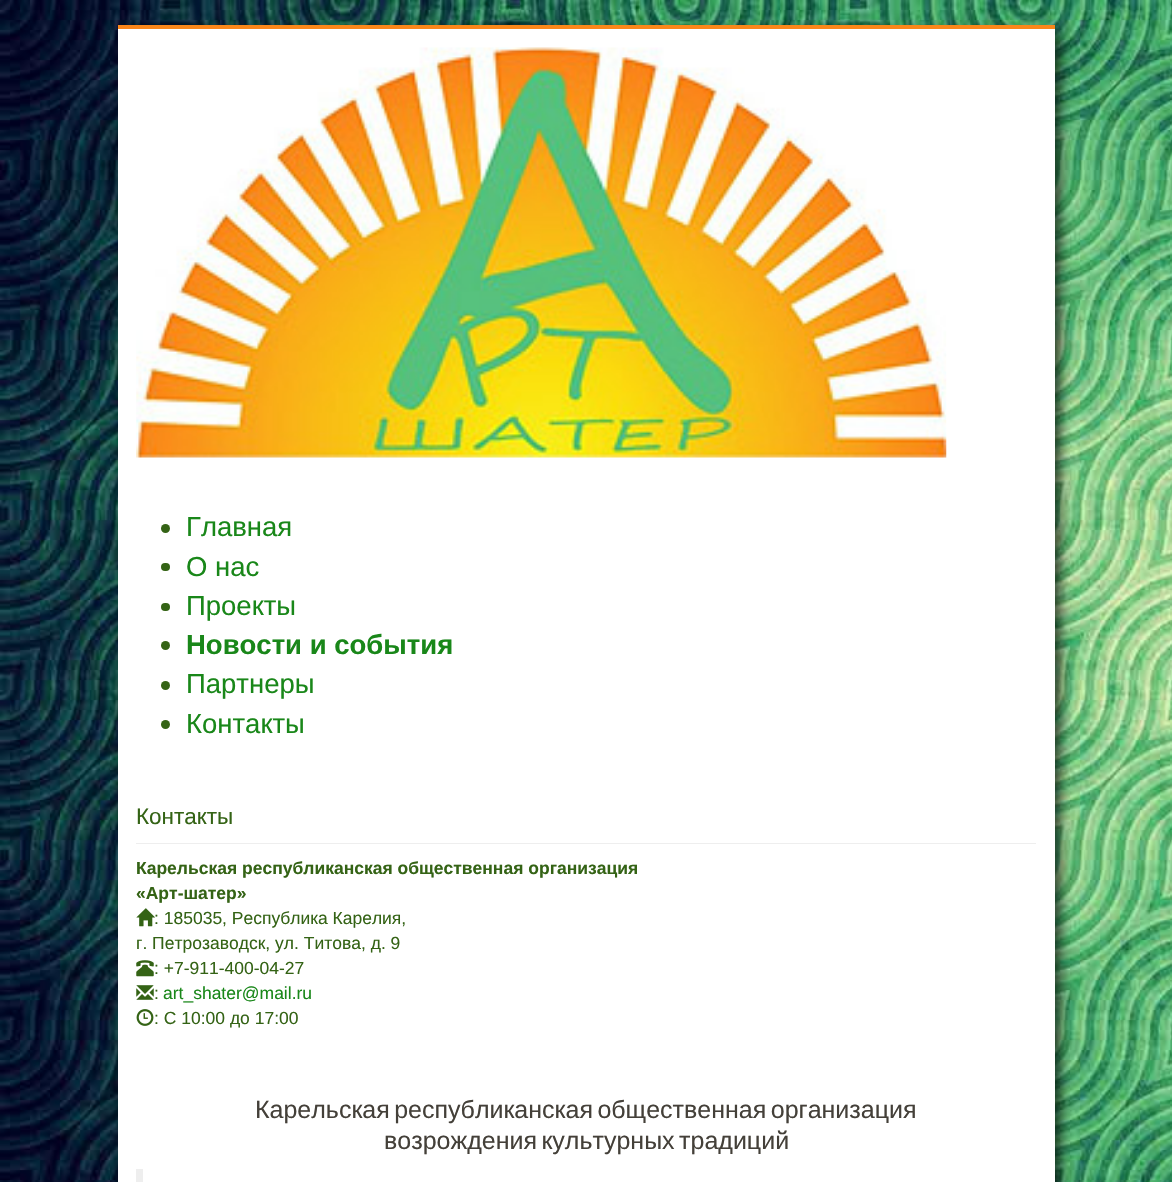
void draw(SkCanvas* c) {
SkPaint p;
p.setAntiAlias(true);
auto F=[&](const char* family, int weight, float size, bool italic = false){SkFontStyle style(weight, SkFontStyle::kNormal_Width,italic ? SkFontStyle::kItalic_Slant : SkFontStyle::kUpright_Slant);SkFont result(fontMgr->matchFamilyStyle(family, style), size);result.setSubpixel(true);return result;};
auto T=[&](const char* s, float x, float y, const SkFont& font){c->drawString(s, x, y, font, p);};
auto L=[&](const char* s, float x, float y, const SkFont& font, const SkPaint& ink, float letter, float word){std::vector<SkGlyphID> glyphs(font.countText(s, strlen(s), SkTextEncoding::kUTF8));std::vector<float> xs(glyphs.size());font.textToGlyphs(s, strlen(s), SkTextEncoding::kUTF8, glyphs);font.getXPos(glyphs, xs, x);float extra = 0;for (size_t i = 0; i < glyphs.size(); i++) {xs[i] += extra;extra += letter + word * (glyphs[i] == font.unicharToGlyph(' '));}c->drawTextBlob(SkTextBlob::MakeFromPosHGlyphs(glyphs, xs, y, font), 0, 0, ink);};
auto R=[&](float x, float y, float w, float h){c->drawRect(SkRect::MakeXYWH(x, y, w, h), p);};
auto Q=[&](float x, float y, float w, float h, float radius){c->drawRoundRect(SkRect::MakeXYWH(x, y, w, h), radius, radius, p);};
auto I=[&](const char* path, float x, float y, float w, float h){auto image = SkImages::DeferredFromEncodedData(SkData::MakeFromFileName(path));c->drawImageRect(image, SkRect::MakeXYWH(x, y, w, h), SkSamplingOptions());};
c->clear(0xffffffff);
I("1.png",0,0,1172,1182);
p.setColor(0xb3000000);
p.setMaskFilter(SkMaskFilter::MakeBlur(kNormal_SkBlurStyle, 6));
c->drawRect(SkRect::MakeXYWH(124,31,937,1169),p);
p.setMaskFilter(nullptr);
p.setColor(0xffffffff);
R(118,29,937,1153);
p.setColor(0xfffb871a);
R(118,25,937,4);
I("2.png",136,47,811,411);
p.setColor(0xff346315);
c->drawCircle(165.5,528.5,4.5,p);
auto f1 = F("Liberation Sans",400,27.5);
p.setColor(0xff198719);
T("Главная",186,536,f1);
p.setColor(0xff346315);
Q(161,563,9,8,4);
p.setColor(0xff198719);
T("О нас",186,576,f1);
p.setColor(0xff346315);
Q(161,603,9,8,4);
p.setColor(0xff198719);
T("Проекты",186,615,f1);
p.setColor(0xff346315);
c->drawCircle(165.5,645.5,4.5,p);
auto f2 = F("Liberation Sans",700,27.5);
p.setColor(0xff198719);
T("Новости и события",186,654,f2);
p.setColor(0xff346315);
c->drawCircle(165.5,685.5,4.5,p);
p.setColor(0xff198719);
T("Партнеры",186,693,f1);
p.setColor(0xff346315);
c->drawCircle(165.5,724.5,4.5,p);
p.setColor(0xff198719);
T("Контакты",186,733,f1);
p.setColor(0xffeeeeee);
R(136,843,900,1);
auto f3 = F("Liberation Sans",400,22.5);
p.setColor(0xff346315);
T("Контакты",136,824,f3);
auto f4 = F("Liberation Sans",700,17.5);
T("Карельская республиканская общественная организация",136,874,f4);
T("«Арт-шатер»",136,899,f4);
I("3.png",136,908,19,19);
auto f5 = F("Liberation Sans",400,17.5);
T(": 185035, Республика Карелия,",154,924,f5);
T("г. Петрозаводск, ул. Титова, д. 9",136,949,f5);
I("4.png",136,960,18,17);
T(": +7-911-400-04-27",154,974,f5);
I("5.png",136,985,18,15);
T(":",154,999,f5);
p.setColor(0xff198719);
T("art_shater@mail.ru",163,999,f5);
I("6.png",136,1009,18,17);
p.setColor(0xff346315);
T(": С 10:00 до 17:00",154,1024,f5);
auto f6 = F("Liberation Sans",400,25);
p.setColor(0xff444039);
L("Карельская республиканская общественная организация",255,1118,f6,p,0,-2.5);
L("возрождения культурных традиций",384,1149,f6,p,0,-2.5);
p.setColor(0xffeeeeee);
R(136,1169,7,13);
}
